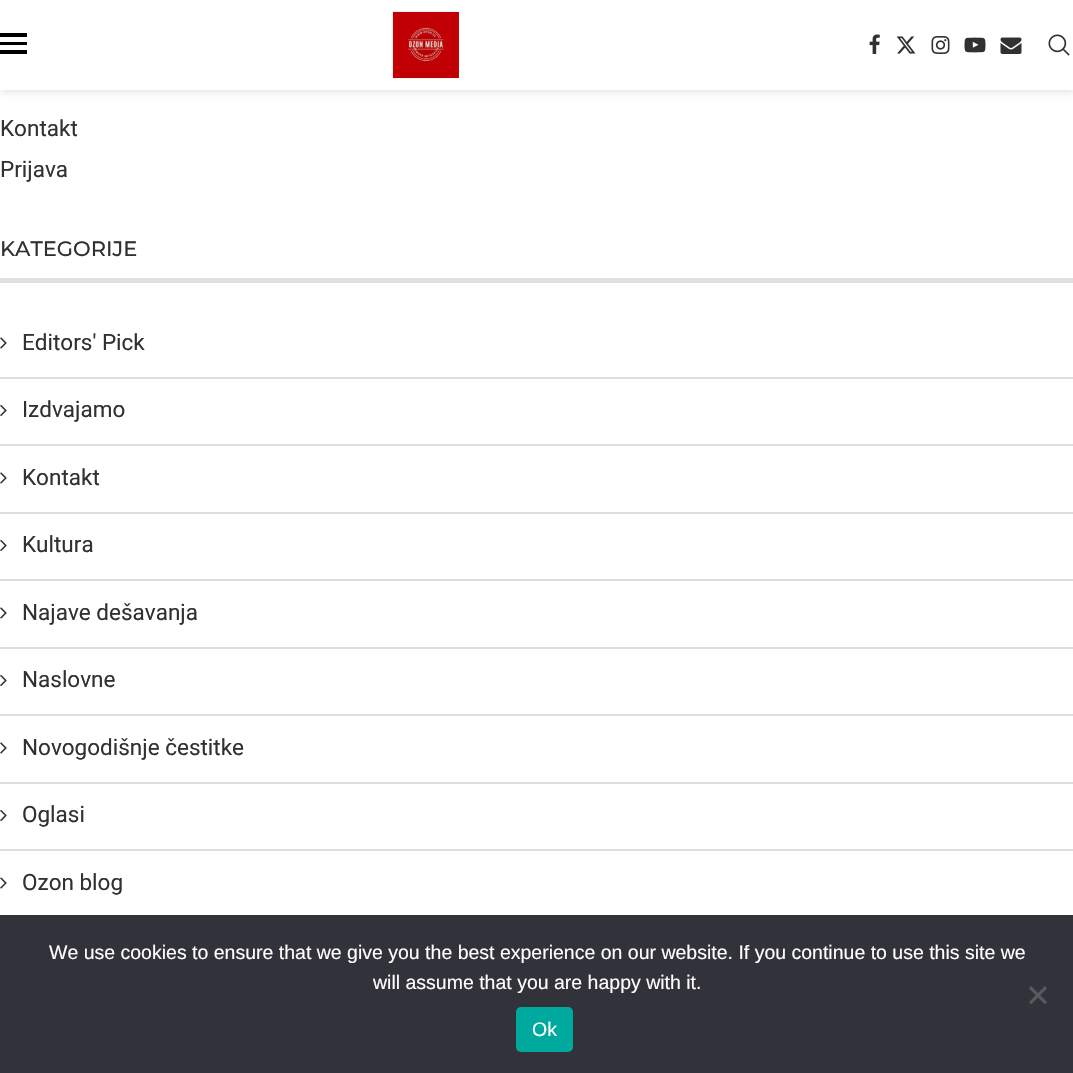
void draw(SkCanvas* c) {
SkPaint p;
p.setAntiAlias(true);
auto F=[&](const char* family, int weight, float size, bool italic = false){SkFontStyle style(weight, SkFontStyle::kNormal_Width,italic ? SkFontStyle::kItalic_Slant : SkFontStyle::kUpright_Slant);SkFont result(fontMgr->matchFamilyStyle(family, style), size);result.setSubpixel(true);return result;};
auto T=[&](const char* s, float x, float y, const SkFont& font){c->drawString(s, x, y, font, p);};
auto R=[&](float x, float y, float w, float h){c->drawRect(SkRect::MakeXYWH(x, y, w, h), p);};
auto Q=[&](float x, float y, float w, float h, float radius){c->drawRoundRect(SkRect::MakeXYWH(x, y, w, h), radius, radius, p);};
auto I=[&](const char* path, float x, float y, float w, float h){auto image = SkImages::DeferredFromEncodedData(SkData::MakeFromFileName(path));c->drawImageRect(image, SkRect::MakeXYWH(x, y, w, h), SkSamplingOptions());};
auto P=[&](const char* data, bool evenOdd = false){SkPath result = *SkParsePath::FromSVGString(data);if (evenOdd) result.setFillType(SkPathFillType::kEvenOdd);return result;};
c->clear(0xffffffff);
p.setColor(0x75bebebe);
p.setMaskFilter(SkMaskFilter::MakeBlur(kNormal_SkBlurStyle, 4));
c->drawRect(SkRect::MakeXYWH(0,2,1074,90),p);
p.setMaskFilter(nullptr);
p.setColor(0xffffffff);
R(0,0,1073,90);
p.setColor(0xff000000);
R(0,33,27,4);
R(0,42,27,3);
R(0,50,27,4);
I("1.png",392,11,67,68);
I("2.png",869,34,11,20);
I("3.png",896,36,20,18);
I("4.png",931,36,19,18);
I("5.png",964,37,22,16);
I("6.png",1000,37,22,17);
I("7.png",1048,34,22,22);
auto f1 = F("Roboto",400,22.5);
p.setColor(0xff313131);
T("Kontakt",0,136,f1);
T("Prijava",0,177,f1);
p.setColor(0xffe0e0e0);
R(0,278,1073,5);
auto f2 = F("Montserrat",500,21);
p.setColor(0xff313131);
T("KATEGORIJE",0,256,f2);
p.setColor(0xffdedede);
R(0,377,1073,2);
I("8.png",0,337,7,12);
p.setColor(0xff313131);
T("Editors' Pick",22,350,f1);
p.setColor(0xffdedede);
R(0,444,1073,2);
I("9.png",0,404,7,13);
p.setColor(0xff313131);
T("Izdvajamo",22,417,f1);
p.setColor(0xffdedede);
R(0,512,1073,2);
I("8.png",0,472,7,12);
p.setColor(0xff313131);
T("Kontakt",22,485,f1);
p.setColor(0xffdedede);
R(0,579,1073,2);
I("9.png",0,539,7,13);
p.setColor(0xff313131);
T("Kultura",22,552,f1);
p.setColor(0xffdedede);
R(0,647,1073,2);
I("8.png",0,607,7,12);
p.setColor(0xff313131);
T("Najave dešavanja",22,620,f1);
p.setColor(0xffdedede);
R(0,714,1073,2);
I("9.png",0,674,7,13);
p.setColor(0xff313131);
T("Naslovne",22,687,f1);
p.setColor(0xffdedede);
R(0,782,1073,2);
I("8.png",0,742,7,12);
p.setColor(0xff313131);
T("Novogodišnje čestitke",22,755,f1);
p.setColor(0xffdedede);
R(0,849,1073,2);
I("9.png",0,809,7,13);
p.setColor(0xff313131);
T("Oglasi",22,822,f1);
I("8.png",0,877,7,12);
T("Ozon blog",22,890,f1);
p.setColor(0xff32323a);
R(0,915,1073,158);
auto f3 = F("Liberation Sans",400,19.5);
p.setColor(0xffffffff);
T("We use cookies to ensure that we give you the best experience on our website. If you continue to use this site we",49,959,f3);
T("will assume that you are happy with it.",373,989,f3);
p.setColor(0xff59595d);
c->drawPath(P("M1045 986l2 2.5l-16 16l-2-2.5z"),p);
c->drawPath(P("M1029 988.5l2-2.5l16 16l-2 2.5z"),p);
p.setColor(0xff00a99d);
Q(516,1007,57,45,5);
p.setColor(0xffffffff);
T("Ok",532,1036,f3);
}
